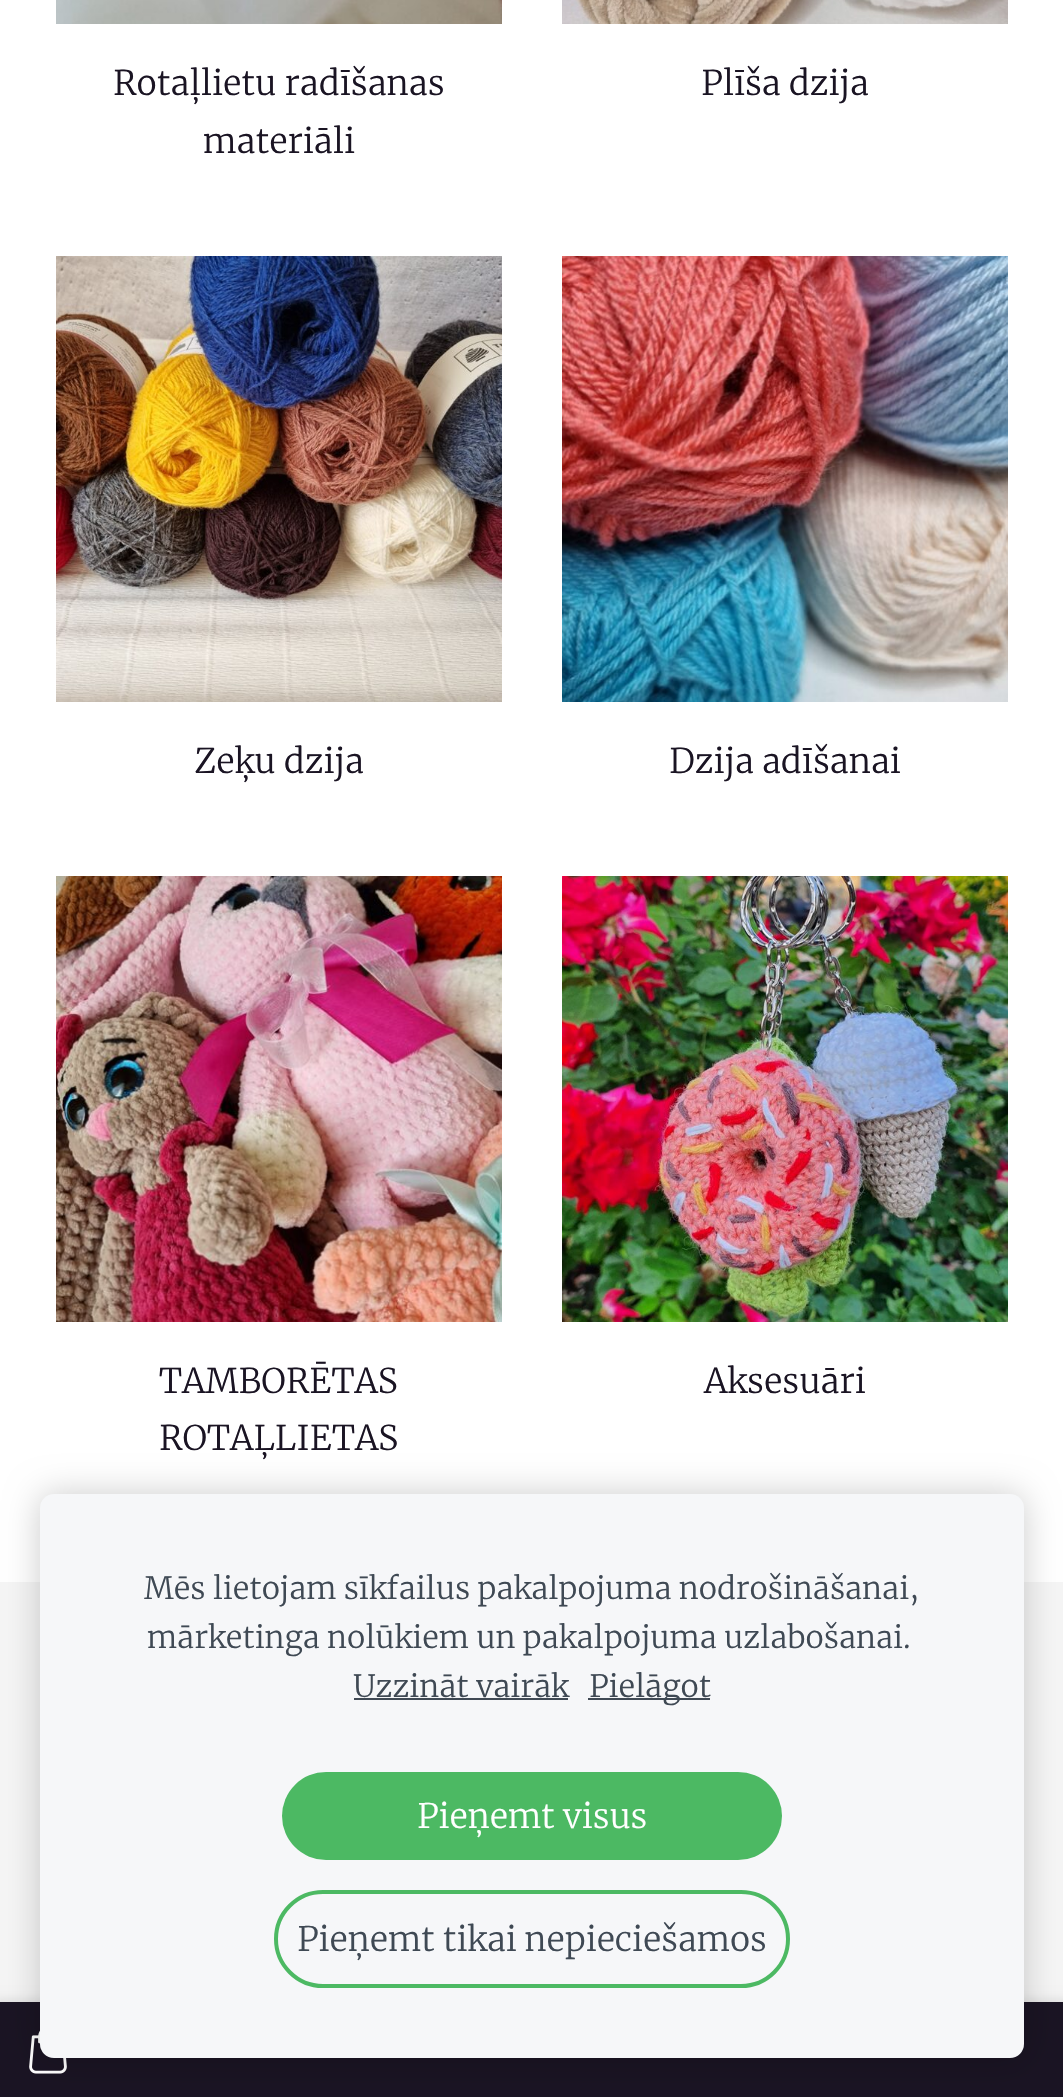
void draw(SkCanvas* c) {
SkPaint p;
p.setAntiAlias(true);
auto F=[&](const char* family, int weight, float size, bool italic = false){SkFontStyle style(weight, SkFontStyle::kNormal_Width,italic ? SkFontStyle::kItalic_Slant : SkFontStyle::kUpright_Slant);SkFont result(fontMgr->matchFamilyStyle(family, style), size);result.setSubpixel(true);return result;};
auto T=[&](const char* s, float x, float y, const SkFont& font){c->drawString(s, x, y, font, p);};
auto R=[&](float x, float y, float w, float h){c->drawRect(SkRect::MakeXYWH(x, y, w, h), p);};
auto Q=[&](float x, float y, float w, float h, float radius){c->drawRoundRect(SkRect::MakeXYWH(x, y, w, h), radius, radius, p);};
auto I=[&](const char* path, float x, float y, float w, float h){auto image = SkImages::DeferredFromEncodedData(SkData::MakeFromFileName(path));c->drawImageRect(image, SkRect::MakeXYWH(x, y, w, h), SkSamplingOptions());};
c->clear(0xfff5f5f5);
p.setColor(0xffffffff);
R(0,0,1063,1582);
I("1.png",56,0,446,24);
auto f1 = F("Merriweather",300,34);
p.setColor(0xff1a1423);
T("Rotaļlietu radīšanas",113,95,f1);
T("materiāli",203,153,f1);
I("2.png",562,0,446,24);
T("Plīša dzija",701,95,f1);
I("3.png",56,256,446,446);
T("Zeķu dzija",194,773,f1);
I("4.png",562,256,446,446);
T("Dzija adīšanai",669,773,f1);
I("5.png",56,876,446,446);
T("TAMBORĒTAS",159,1393,f1);
T("ROTAĻLIETAS",159,1450,f1);
I("6.png",562,876,446,446);
T("Aksesuāri",704,1393,f1);
p.setColor(0x1a000000);
p.setMaskFilter(SkMaskFilter::MakeBlur(kNormal_SkBlurStyle, 5));
c->drawRect(SkRect::MakeXYWH(-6,2000,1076,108),p);
p.setMaskFilter(nullptr);
p.setColor(0xff1a1423);
R(0,2002,1063,95);
I("7.png",29,2030,38,44);
p.setColor(0x33000000);
p.setMaskFilter(SkMaskFilter::MakeBlur(kNormal_SkBlurStyle, 17));
c->drawRoundRect(SkRect::MakeXYWH(40,1494,984,564),14,14,p);
p.setMaskFilter(nullptr);
p.setColor(0xfff6f7f9);
Q(40,1494,984,564,14);
auto f2 = F("Merriweather",300,30.6);
p.setColor(0xff3f4954);
T("Mēs lietojam sīkfailus pakalpojuma nodrošināšanai,",144,1599,f2);
T("mārketinga nolūkiem un pakalpojuma uzlabošanai.",147,1648,f2);
T("Uzzināt vairāk",353,1697,f2);
R(354,1698,214,2);
R(588,1698,122,2);
T("Pielāgot",589,1697,f2);
p.setColor(0xff4cb963);
Q(282,1772,500,88,44);
auto f3 = F("Merriweather",300,33.7);
p.setColor(0xffffffff);
T("Pieņemt visus",417,1828,f3);
p.setStroke(true);
p.setStrokeWidth(4);
p.setColor(0xff4cb963);
c->drawRoundRect(SkRect::MakeXYWH(276,1892,512,94),47,47,p);
p.setStroke(false);
p.setColor(0xff3f4954);
T("Pieņemt tikai nepieciešamos",297,1951,f3);
}
